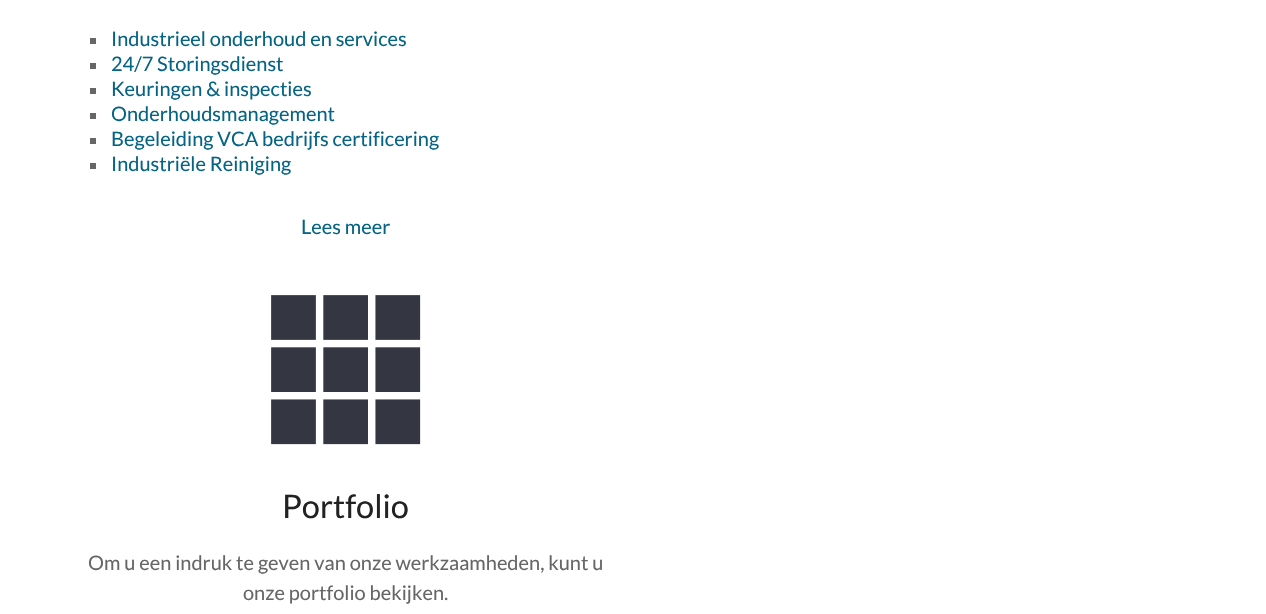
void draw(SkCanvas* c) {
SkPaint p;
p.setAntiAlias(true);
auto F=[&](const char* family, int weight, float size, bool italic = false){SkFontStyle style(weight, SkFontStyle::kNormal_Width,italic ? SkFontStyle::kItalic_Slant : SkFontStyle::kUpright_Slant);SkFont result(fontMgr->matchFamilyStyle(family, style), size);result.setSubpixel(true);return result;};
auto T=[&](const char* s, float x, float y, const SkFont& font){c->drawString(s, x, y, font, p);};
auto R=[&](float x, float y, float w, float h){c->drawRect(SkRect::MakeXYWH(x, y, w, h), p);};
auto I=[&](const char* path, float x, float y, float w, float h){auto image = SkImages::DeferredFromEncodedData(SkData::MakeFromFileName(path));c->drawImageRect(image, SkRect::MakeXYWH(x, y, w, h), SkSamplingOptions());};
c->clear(0xffffffff);
p.setColor(0xff666666);
R(90,38,6,6);
auto f1 = F("Lato",400,20);
p.setColor(0xff056484);
T("Industrieel onderhoud en services",111,46,f1);
p.setColor(0xff666666);
R(90,63,6,6);
p.setColor(0xff056484);
T("24/7 Storingsdienst",111,71,f1);
p.setColor(0xff666666);
R(90,88,6,6);
p.setColor(0xff056484);
T("Keuringen & inspecties",111,96,f1);
p.setColor(0xff666666);
R(90,113,6,6);
p.setColor(0xff056484);
T("Onderhoudsmanagement",111,121,f1);
p.setColor(0xff666666);
R(90,138,6,6);
p.setColor(0xff056484);
T("Begeleiding VCA bedrijfs certificering",111,146,f1);
p.setColor(0xff666666);
R(90,163,6,6);
p.setColor(0xff056484);
T("Industriële Reiniging",111,171,f1);
T("Lees meer",301,234,f1);
I("1.png",271,295,150,150);
auto f2 = F("Lato",400,32.5);
p.setColor(0xff222222);
T("Portfolio",282,518,f2);
p.setColor(0xff666666);
T("Om u een indruk te geven van onze werkzaamheden, kunt u",88,570,f1);
T("onze portfolio bekijken.",243,600,f1);
}
